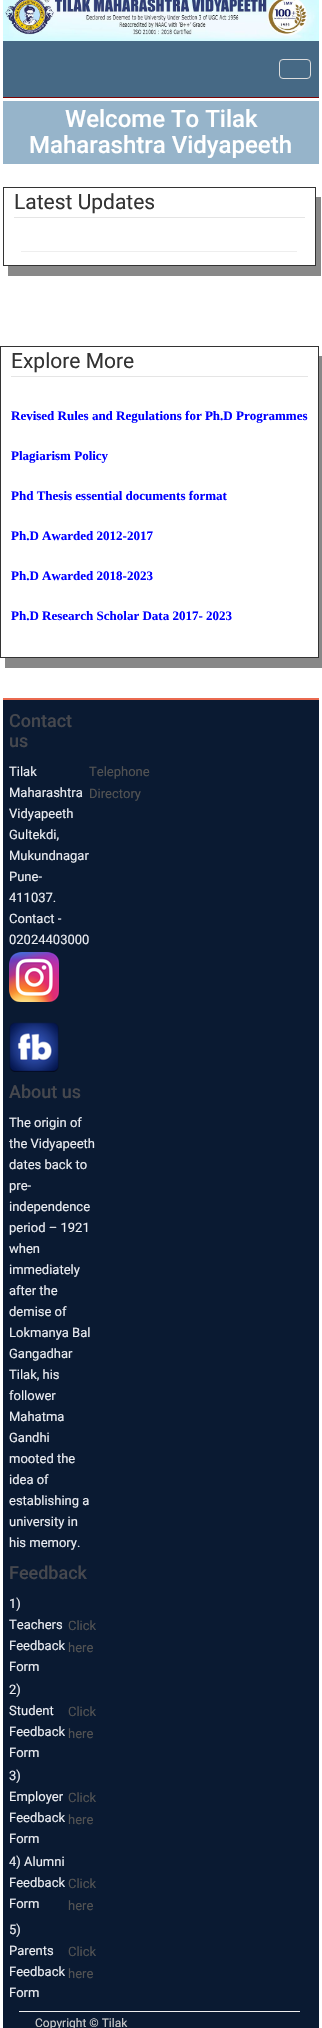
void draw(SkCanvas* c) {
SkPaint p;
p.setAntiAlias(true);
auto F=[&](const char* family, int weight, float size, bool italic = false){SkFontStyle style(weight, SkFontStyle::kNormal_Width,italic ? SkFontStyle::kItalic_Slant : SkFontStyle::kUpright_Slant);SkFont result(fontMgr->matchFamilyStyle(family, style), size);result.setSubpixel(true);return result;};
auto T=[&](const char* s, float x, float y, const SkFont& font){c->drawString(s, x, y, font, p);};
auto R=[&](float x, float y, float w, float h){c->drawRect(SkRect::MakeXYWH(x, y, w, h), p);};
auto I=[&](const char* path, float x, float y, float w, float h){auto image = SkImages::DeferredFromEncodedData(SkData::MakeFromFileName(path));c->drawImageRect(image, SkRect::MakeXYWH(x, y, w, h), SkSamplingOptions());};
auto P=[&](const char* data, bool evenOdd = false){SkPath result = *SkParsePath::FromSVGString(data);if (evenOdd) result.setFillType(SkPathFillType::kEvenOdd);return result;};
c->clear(0xffffffff);
I("1.png",3,0,316,41);
p.setColor(0xff466985);
R(3,41,316,56);
p.setColor(0xff7d0404);
R(3,97,316,1);
p.setStroke(true);
p.setStrokeWidth(1);
p.setColor(0xffdddddd);
c->drawRoundRect(SkRect::MakeXYWH(279.5,59.5,31,19),3.5,3.5,p);
p.setStroke(false);
p.setColor(0xff96b4ca);
R(3,101,316,63);
auto f1 = F("Roboto",500,24);
p.setColor(0xffffffff);
T("Welcome To Tilak",65,127,f1);
T("Maharashtra Vidyapeeth",29,153,f1);
p.setColor(0xff888888);
c->drawPath(P("M8 266v10h313v-79h-5v69z"),p);
p.setStroke(true);
p.setColor(0xff333333);
c->drawRect(SkRect::MakeXYWH(3.5,187.5,312,78),p);
p.setStroke(false);
p.setColor(0xffe5e5e5);
R(14,217,291,1);
auto f2 = F("Roboto",400,21);
p.setColor(0xff333333);
T("Latest Updates",14,209,f2);
p.setColor(0xffeeeeee);
R(21,251,276,1);
p.setColor(0xff888888);
c->drawPath(P("M5 658v10h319v-312h-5v302z"),p);
p.setStroke(true);
p.setColor(0xff333333);
c->drawRect(SkRect::MakeXYWH(.5,346.5,318,311),p);
p.setStroke(false);
p.setColor(0xffe5e5e5);
R(11,376,297,1);
p.setColor(0xff333333);
T("Explore More",11,368,f2);
auto f3 = F("Liberation Serif",700,13);
p.setColor(0xff0000ff);
T("Revised Rules and Regulations for Ph.D Programmes",11,420,f3);
T("Plagiarism Policy",11,460,f3);
T("Phd Thesis essential documents format",11,500,f3);
T("Ph.D Awarded 2012-2017",11,540,f3);
T("Ph.D Awarded 2018-2023",11,580,f3);
T("Ph.D Research Scholar Data 2017- 2023",11,620,f3);
p.setColor(0xff0a1a32);
R(3,700,316,1328);
p.setColor(0xffea6a50);
R(3,698,316,2);
auto f4 = F("Roboto",500,18);
p.setColor(0xff46484e);
T("Contact",9,727,f4);
T("us",9,747,f4);
auto f5 = F("Roboto",400,13);
p.setColor(0xffebedf2);
T("Tilak",9,776,f5);
p.setColor(0xff535353);
T("Telephone",89,776,f5);
T("Directory",89,798,f5);
p.setColor(0xffebedf2);
T("Maharashtra",9,797,f5);
T("Vidyapeeth",9,818,f5);
T("Gultekdi,",9,839,f5);
T("Mukundnagar",9,860,f5);
T("Pune-",9,881,f5);
T("411037.",9,902,f5);
T("Contact -",9,923,f5);
T("02024403000",9,944,f5);
I("2.png",9,952,50,50);
I("3.png",9,1022,50,50);
p.setColor(0xff46484e);
T("About us",9,1098,f4);
p.setColor(0xffebedf2);
T("The origin of",9,1127,f5);
T("the Vidyapeeth",9,1148,f5);
T("dates back to",9,1169,f5);
T("pre-",9,1190,f5);
T("independence",9,1211,f5);
T("period – 1921",9,1232,f5);
T("when",9,1253,f5);
T("immediately",9,1274,f5);
T("after the",9,1295,f5);
T("demise of",9,1316,f5);
T("Lokmanya Bal",9,1337,f5);
T("Gangadhar",9,1358,f5);
T("Tilak, his",9,1379,f5);
T("follower",9,1400,f5);
T("Mahatma",9,1421,f5);
T("Gandhi",9,1442,f5);
T("mooted the",9,1463,f5);
T("idea of",9,1484,f5);
T("establishing a",9,1505,f5);
T("university in",9,1526,f5);
T("his memory.",9,1547,f5);
p.setColor(0xff46484e);
T("Feedback",9,1579,f4);
p.setColor(0xffebedf2);
T("1)",9,1608,f5);
T("Teachers",9,1629,f5);
p.setColor(0xff535353);
T("Click",68,1630,f5);
T("here",68,1652,f5);
p.setColor(0xffebedf2);
T("Feedback",9,1650,f5);
T("Form",9,1671,f5);
T("2)",9,1694,f5);
T("Student",9,1715,f5);
p.setColor(0xff535353);
T("Click",68,1716,f5);
T("here",68,1738,f5);
p.setColor(0xffebedf2);
T("Feedback",9,1736,f5);
T("Form",9,1757,f5);
T("3)",9,1780,f5);
T("Employer",9,1801,f5);
p.setColor(0xff535353);
T("Click",68,1802,f5);
T("here",68,1824,f5);
p.setColor(0xffebedf2);
T("Feedback",9,1822,f5);
T("Form",9,1843,f5);
T("4) Alumni",9,1866,f5);
T("Feedback",9,1887,f5);
p.setColor(0xff535353);
T("Click",68,1888,f5);
T("here",68,1910,f5);
p.setColor(0xffebedf2);
T("Form",9,1908,f5);
T("5)",9,1934,f5);
T("Parents",9,1955,f5);
p.setColor(0xff535353);
T("Click",68,1956,f5);
T("here",68,1978,f5);
p.setColor(0xffebedf2);
T("Feedback",9,1976,f5);
T("Form",9,1997,f5);
p.setColor(0xffeeeeee);
R(19,2011,281,1);
auto f6 = F("Roboto",400,12);
p.setColor(0xffcccccc);
T("Copyright © Tilak",35,2027,f6);
}
